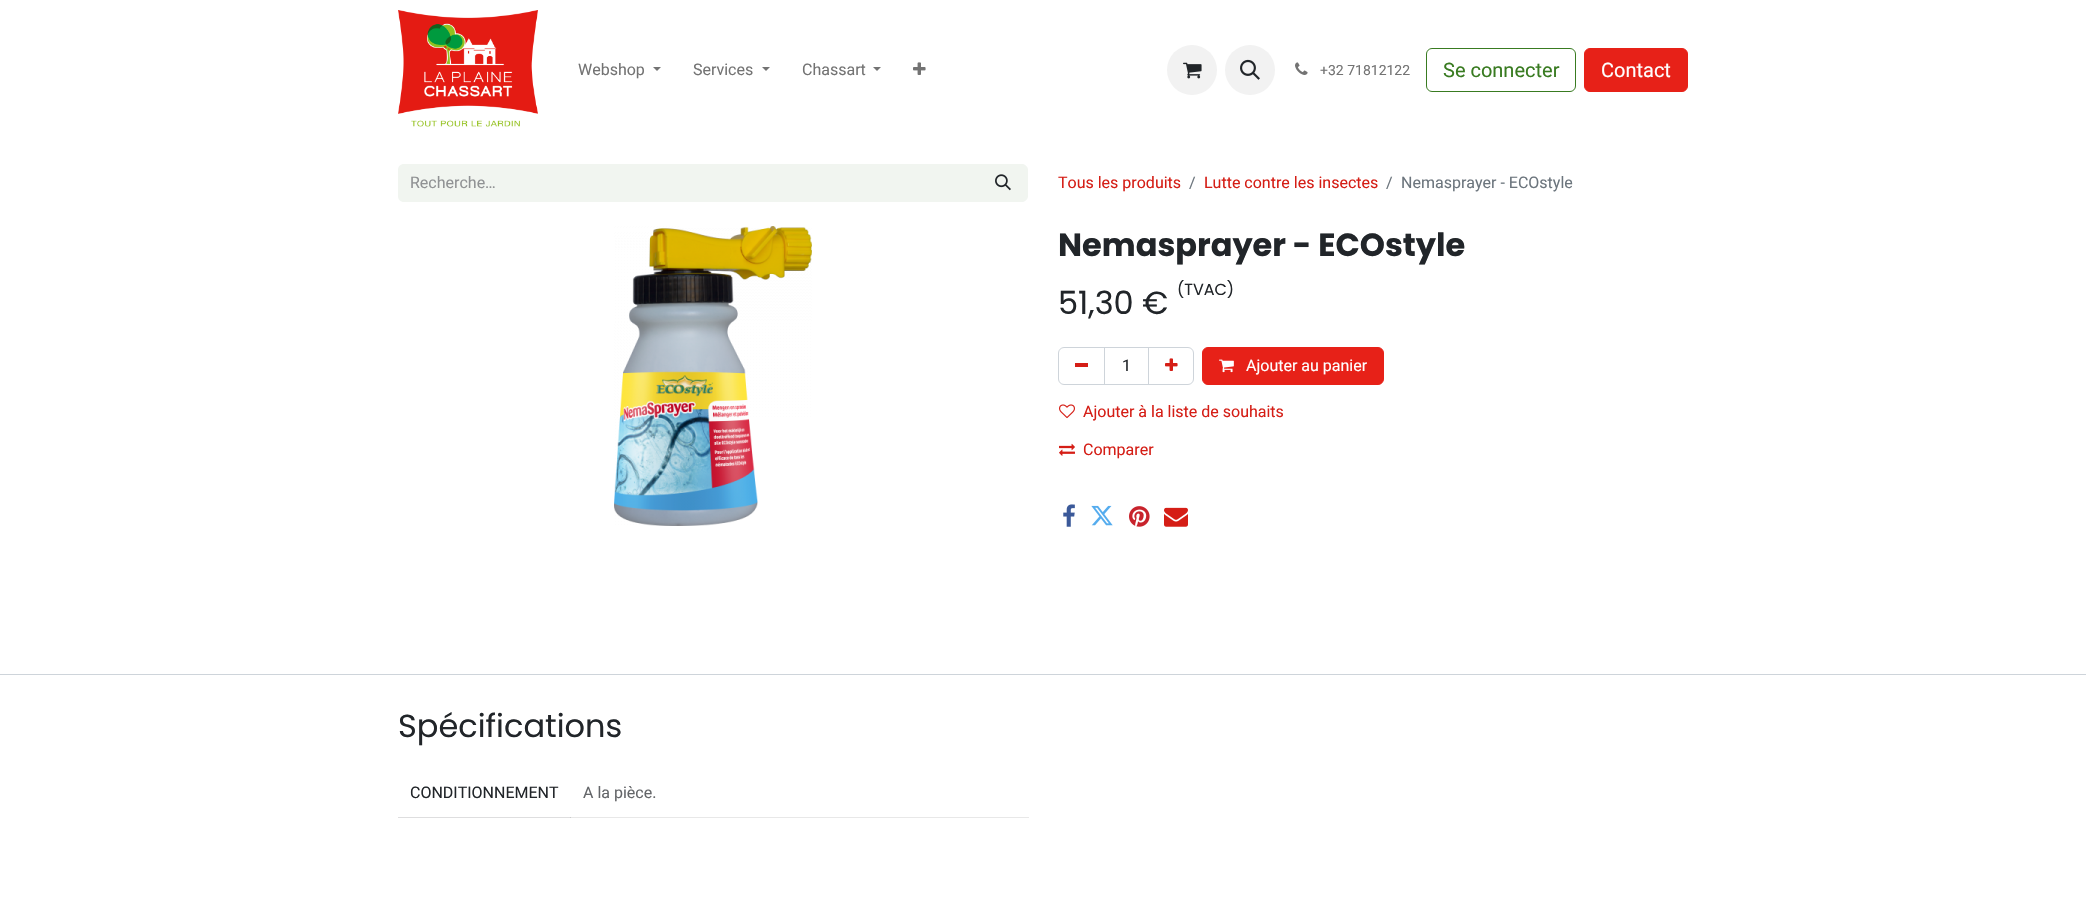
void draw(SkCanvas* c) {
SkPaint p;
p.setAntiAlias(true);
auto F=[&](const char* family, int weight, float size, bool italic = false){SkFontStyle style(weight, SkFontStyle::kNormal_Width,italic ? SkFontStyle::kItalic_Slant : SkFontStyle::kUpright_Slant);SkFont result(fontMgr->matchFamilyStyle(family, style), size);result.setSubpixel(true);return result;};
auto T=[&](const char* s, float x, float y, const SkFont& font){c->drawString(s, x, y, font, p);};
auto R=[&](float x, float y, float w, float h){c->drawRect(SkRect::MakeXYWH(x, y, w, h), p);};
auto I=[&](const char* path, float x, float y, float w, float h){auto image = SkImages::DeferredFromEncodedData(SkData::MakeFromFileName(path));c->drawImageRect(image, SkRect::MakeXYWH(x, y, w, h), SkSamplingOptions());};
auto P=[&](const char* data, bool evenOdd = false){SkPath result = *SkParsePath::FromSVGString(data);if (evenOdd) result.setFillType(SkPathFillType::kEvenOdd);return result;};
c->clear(0xffffffff);
p.setColor(0xffdededf);
R(398,817,173,1);
I("1.png",398,10,140,117);
auto f1 = F("Roboto",400,16);
p.setColor(0xff737373);
T("Webshop",578,75,f1);
c->drawPath(P("M653 67h8l-4 4z"),p);
T("Services",693,75,f1);
c->drawPath(P("M762 67h8l-4 4z"),p);
T("Chassart",802,75,f1);
c->drawPath(P("M873 67h8l-4 4z"),p);
I("2.png",913,62,13,13);
p.setColor(0xfff2f2f2);
c->drawCircle(1192,70,25,p);
I("3.png",1183,62,19,17);
c->drawCircle(1250,70,25,p);
I("4.png",1240,59,20,21);
I("5.png",1295,62,13,13);
auto f2 = F("Roboto",400,14);
p.setColor(0xff737373);
T("+32 71812122",1320,75,f2);
p.setStroke(true);
p.setStrokeWidth(1);
p.setColor(0xff397b21);
c->drawRoundRect(SkRect::MakeXYWH(1426.5,48.5,149,43),5.5,5.5,p);
auto f3 = F("Roboto",400,20);
p.setStroke(false);
T("Se connecter",1443,77,f3);
p.setColor(0xffe72118);
c->drawRoundRect(SkRect::MakeXYWH(1584.5,48.5,103,43),5.5,5.5,p);
p.setStroke(true);
c->drawRoundRect(SkRect::MakeXYWH(1584.5,48.5,103,43),5.5,5.5,p);
p.setStroke(false);
p.setColor(0xffffffff);
T("Contact",1601,77,f3);
p.setColor(0xfff1f5f0);
c->drawPath(P("M404 164h575v38h-575c-3.5 0-6-2.5-6-6v-26c0-3.5 2.5-6 6-6z"),p);
p.setColor(0xff909294);
T("Recherche…",410,188,f1);
p.setColor(0xfff1f5f0);
c->drawPath(P("M978.5 164.5h43.5c3 0 5.5 2.5 5.5 5.5v26c0 3-2.5 5.5-5.5 5.5h-43.5z"),p);
p.setStroke(true);
c->drawPath(P("M978.5 164.5h43.5c3 0 5.5 2.5 5.5 5.5v26c0 3-2.5 5.5-5.5 5.5h-43.5z"),p);
I("6.png",995,174,16,17);
p.setStroke(false);
p.setColor(0xffd51e16);
T("Tous les produits",1058,188,f1);
p.setColor(0xff6c757d);
T("/",1189,188,f1);
p.setColor(0xffd51e16);
T("Lutte contre les insectes",1204,188,f1);
p.setColor(0xff6c757d);
T("/",1386,188,f1);
T("Nemasprayer - ECOstyle",1401,188,f1);
I("7.png",614,226,198,300);
auto f4 = F("Poppins",700,32);
p.setColor(0xff212529);
T("Nemasprayer - ECOstyle",1058,256,f4);
auto f5 = F("Poppins",400,32);
T("51,30 €",1058,314,f5);
auto f6 = F("Poppins",400,16);
T("(TVAC)",1177,295,f6);
p.setStroke(true);
p.setColor(0xffced4da);
c->drawRect(SkRect::MakeXYWH(1104.5,347.5,44,37),p);
c->drawPath(P("M1064 347.5h40.5v37h-40.5c-3 0-5.5-2.5-5.5-5.5v-26c0-3 2.5-5.5 5.5-5.5z"),p);
p.setStroke(false);
p.setColor(0xffd51e16);
R(1075,363,13,4);
p.setColor(0xff212529);
T("1",1122,371,f1);
p.setStroke(true);
p.setColor(0xffced4da);
c->drawPath(P("M1148.5 347.5h39.5c3 0 5.5 2.5 5.5 5.5v26c0 3-2.5 5.5-5.5 5.5h-39.5z"),p);
I("8.png",1165,358,13,13);
p.setStroke(false);
p.setColor(0xffe72118);
c->drawRoundRect(SkRect::MakeXYWH(1202.5,347.5,181,37),5.5,5.5,p);
p.setStroke(true);
c->drawRoundRect(SkRect::MakeXYWH(1202.5,347.5,181,37),5.5,5.5,p);
I("9.png",1219,359,15,14);
p.setStroke(false);
p.setColor(0xffffffff);
T("Ajouter au panier",1246,371,f1);
I("10.png",1059,404,16,15);
p.setColor(0xffd51e16);
T("Ajouter à la liste de souhaits",1083,417,f1);
I("11.png",1059,443,16,13);
T("Comparer",1083,455,f1);
I("12.png",1063,504,12,23);
I("13.png",1091,505,22,21);
I("14.png",1129,506,21,21);
I("15.png",1164,507,24,20);
p.setColor(0xffced4da);
R(0,674,2086,1);
p.setColor(0xff212529);
T("Spécifications",398,737,f5);
T("CONDITIONNEMENT",410,798,f1);
p.setColor(0xffe8e8e8);
R(570,817,459,1);
p.setColor(0xffcacbcb);
R(570,817,1,1);
p.setColor(0xff646669);
T("A la pièce.",583,798,f1);
}
